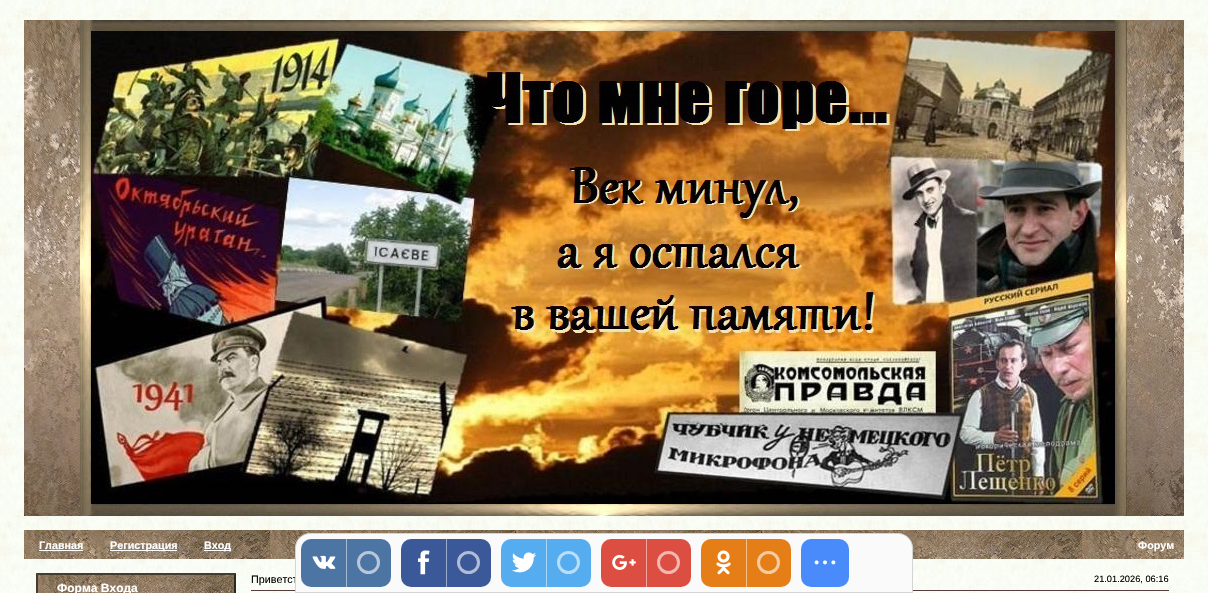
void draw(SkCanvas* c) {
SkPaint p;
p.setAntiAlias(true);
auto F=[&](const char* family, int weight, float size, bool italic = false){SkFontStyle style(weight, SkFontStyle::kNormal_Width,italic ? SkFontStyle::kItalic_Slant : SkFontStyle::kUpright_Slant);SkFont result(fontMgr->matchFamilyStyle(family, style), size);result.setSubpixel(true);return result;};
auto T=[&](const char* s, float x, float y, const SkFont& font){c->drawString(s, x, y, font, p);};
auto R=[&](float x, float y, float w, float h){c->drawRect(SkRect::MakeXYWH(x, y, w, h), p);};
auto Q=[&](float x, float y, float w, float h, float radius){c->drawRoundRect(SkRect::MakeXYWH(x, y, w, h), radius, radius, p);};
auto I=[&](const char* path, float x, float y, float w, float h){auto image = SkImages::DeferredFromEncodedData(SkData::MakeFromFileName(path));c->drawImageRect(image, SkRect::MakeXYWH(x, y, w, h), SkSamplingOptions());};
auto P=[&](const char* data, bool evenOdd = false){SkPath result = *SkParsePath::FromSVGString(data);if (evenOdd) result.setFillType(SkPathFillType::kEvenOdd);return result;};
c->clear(0xffffffff);
I("1.png",0,0,1208,593);
I("2.png",24,20,1160,496);
I("3.png",80,20,1047,496);
I("10.png",24,530,812,29);
I("11.png",836,530,348,29);
auto f1 = F("Liberation Sans",400,10.75);
p.setColor(0xff000000);
T("Приветст",251,583,f1);
p.setColor(0xff543e40);
R(251,590,918,1);
p.setColor(0xfffafafa);
c->drawPath(P("M310 533.5h588c8 0 14.5 6.5 14.5 14.5v44.5h-617v-44.5c0-8 6.5-14.5 14.5-14.5z"),p);
p.setStroke(true);
p.setStrokeWidth(1);
p.setColor(0xffd4d4d4);
c->drawPath(P("M310 533.5h588c8 0 14.5 6.5 14.5 14.5v44.5h-617v-44.5c0-8 6.5-14.5 14.5-14.5z"),p);
p.setStroke(false);
p.setColor(0xff4d75a3);
Q(301,539,90,48,10);
I("4.png",312,555,24,14);
p.setColor(0xffa6bad1);
R(346,539,1,48);
p.setStroke(true);
p.setStrokeWidth(3);
p.setColor(0xffb8c8da);
c->drawCircle(368.5,562.5,10,p);
p.setStroke(false);
p.setColor(0xff3b5998);
Q(401,539,90,48,10);
I("5.png",418,550,12,25);
p.setColor(0xff9daccc);
R(446,539,1,48);
p.setStroke(true);
p.setColor(0xffb1bdd6);
c->drawCircle(468.5,562.5,10,p);
p.setStroke(false);
p.setColor(0xff55acee);
Q(501,539,90,48,10);
I("6.png",512,552,25,21);
p.setColor(0xffaad6f7);
R(546,539,1,48);
p.setStroke(true);
p.setColor(0xffbbdef8);
c->drawCircle(568.5,562.5,10,p);
p.setStroke(false);
p.setColor(0xffdc4e41);
Q(601,539,90,48,10);
I("7.png",612,554,24,16);
p.setColor(0xffeea7a0);
R(646,539,1,48);
p.setStroke(true);
p.setColor(0xfff1b8b3);
c->drawCircle(668.5,562.5,10,p);
p.setStroke(false);
p.setColor(0xffe67e17);
Q(701,539,90,48,10);
I("8.png",716,550,15,25);
p.setColor(0xfff3bf8b);
R(746,539,1,48);
p.setStroke(true);
p.setColor(0xfff5cba2);
c->drawCircle(768.5,562.5,10,p);
p.setStroke(false);
p.setColor(0xff498bfa);
Q(801,539,48,48,10);
I("9.png",814,560,22,5);
auto f2 = F("Liberation Sans",700,10.75);
p.setColor(0xffffffff);
T("Главная",39,549,f2);
R(39,550,44,1);
R(110,550,67,1);
T("Регистрация",110,549,f2);
R(204,550,27,1);
T("Вход",204,549,f2);
T("Форум",1138,549,f2);
auto f3 = F("Liberation Sans",400,9.25);
p.setColor(0xff000000);
T("21.01.2026, 06:16",1094,582,f3);
I("12.png",36,573,200,20);
p.setColor(0xff443c2f);
c->drawPath(P("M36 573h200l-2 2h-196z"),p);
p.setColor(0xff2d281f);
c->drawPath(P("M236 573v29l-2-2v-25z"),p);
p.setColor(0xff443c2f);
c->drawPath(P("M36 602v-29l2 2v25z"),p);
auto f4 = F("Liberation Sans",700,12);
p.setColor(0xffffffff);
T("Форма Входа",57,592,f4);
}
